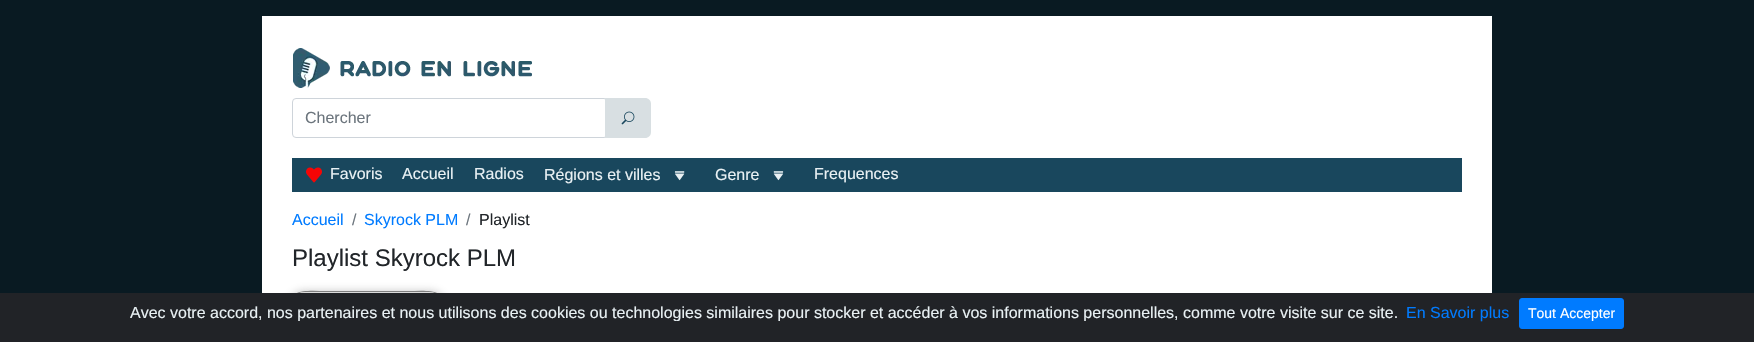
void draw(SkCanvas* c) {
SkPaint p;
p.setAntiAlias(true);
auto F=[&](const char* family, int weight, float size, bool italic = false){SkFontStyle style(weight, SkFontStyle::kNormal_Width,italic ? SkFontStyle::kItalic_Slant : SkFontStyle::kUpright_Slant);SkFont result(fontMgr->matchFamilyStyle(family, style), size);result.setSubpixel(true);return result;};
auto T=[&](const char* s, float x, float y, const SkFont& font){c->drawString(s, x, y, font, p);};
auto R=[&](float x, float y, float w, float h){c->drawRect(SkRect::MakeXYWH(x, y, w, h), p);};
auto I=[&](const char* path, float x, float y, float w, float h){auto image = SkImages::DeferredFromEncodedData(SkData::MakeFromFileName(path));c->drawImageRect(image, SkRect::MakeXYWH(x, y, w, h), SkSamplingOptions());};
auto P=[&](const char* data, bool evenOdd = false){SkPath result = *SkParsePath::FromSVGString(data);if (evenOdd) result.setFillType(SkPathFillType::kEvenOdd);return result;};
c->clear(0xff091a22);
p.setColor(0xffffffff);
R(262,16,1230,277);
I("1.png",293,48,239,40);
p.setStroke(true);
p.setStrokeWidth(1);
p.setColor(0xffced4da);
c->drawRoundRect(SkRect::MakeXYWH(292.5,98.5,315,39),3.5,3.5,p);
auto f1 = F("Liberation Sans",400,16);
p.setStroke(false);
p.setColor(0xff6c757d);
T("Chercher",305,123,f1);
p.setColor(0xffd8dfe2);
c->drawPath(P("M605 98h40c3.5 0 6 2.5 6 6v28c0 3.5-2.5 6-6 6h-40z"),p);
I("2.png",621,111,14,14);
p.setColor(0xff19475d);
R(292,158,1170,34);
I("3.png",306,167,16,16);
p.setColor(0xffe9f1f4);
T("Favoris",330,179,f1);
T("Accueil",402,179,f1);
T("Radios",474,179,f1);
T("Régions et villes",544,180,f1);
I("4.png",674,171,11,10);
T("Genre",715,180,f1);
I("5.png",773,171,11,10);
T("Frequences",814,179,f1);
p.setColor(0xff007bff);
T("Accueil",292,225,f1);
p.setColor(0xff6c757d);
T("/",352,225,f1);
p.setColor(0xff007bff);
T("Skyrock PLM",364,225,f1);
p.setColor(0xff6c757d);
T("/",466,225,f1);
p.setColor(0xff212529);
T("Playlist",479,225,f1);
auto f2 = F("Liberation Sans",400,24);
T("Playlist Skyrock PLM",292,266,f2);
p.setColor(0x73808080);
p.setMaskFilter(SkMaskFilter::MakeBlur(kNormal_SkBlurStyle, 4));
c->drawRoundRect(SkRect::MakeXYWH(287,291,160,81),18,18,p);
p.setMaskFilter(nullptr);
p.setColor(0xff808080);
c->drawPath(P("M305 292h124c10 0 18 8 18 18c0-23-23-19-39-19h-82c-16 0-39-4-39 19c0-10 8-18 18-18z"),p);
p.setColor(0xff212327);
R(0,293,1754,49);
c->save();
c->clipRect(SkRect::MakeXYWH(125,305,1384,16));
p.setColor(0xffe9f1f4);
T("Avec votre accord, nos partenaires et nous utilisons des cookies ou technologies similaires pour stocker et accéder à vos informations personnelles, comme votre visite sur ce site.",130,318,f1);
c->restore();
p.setColor(0xff007bff);
T("En Savoir plus",1406,318,f1);
c->drawRoundRect(SkRect::MakeXYWH(1519.5,298.5,104,30),2.5,2.5,p);
p.setStroke(true);
c->drawRoundRect(SkRect::MakeXYWH(1519.5,298.5,104,30),2.5,2.5,p);
auto f3 = F("Liberation Sans",400,14);
p.setStroke(false);
p.setColor(0xffffffff);
T("Tout Accepter",1528,318,f3);
}
